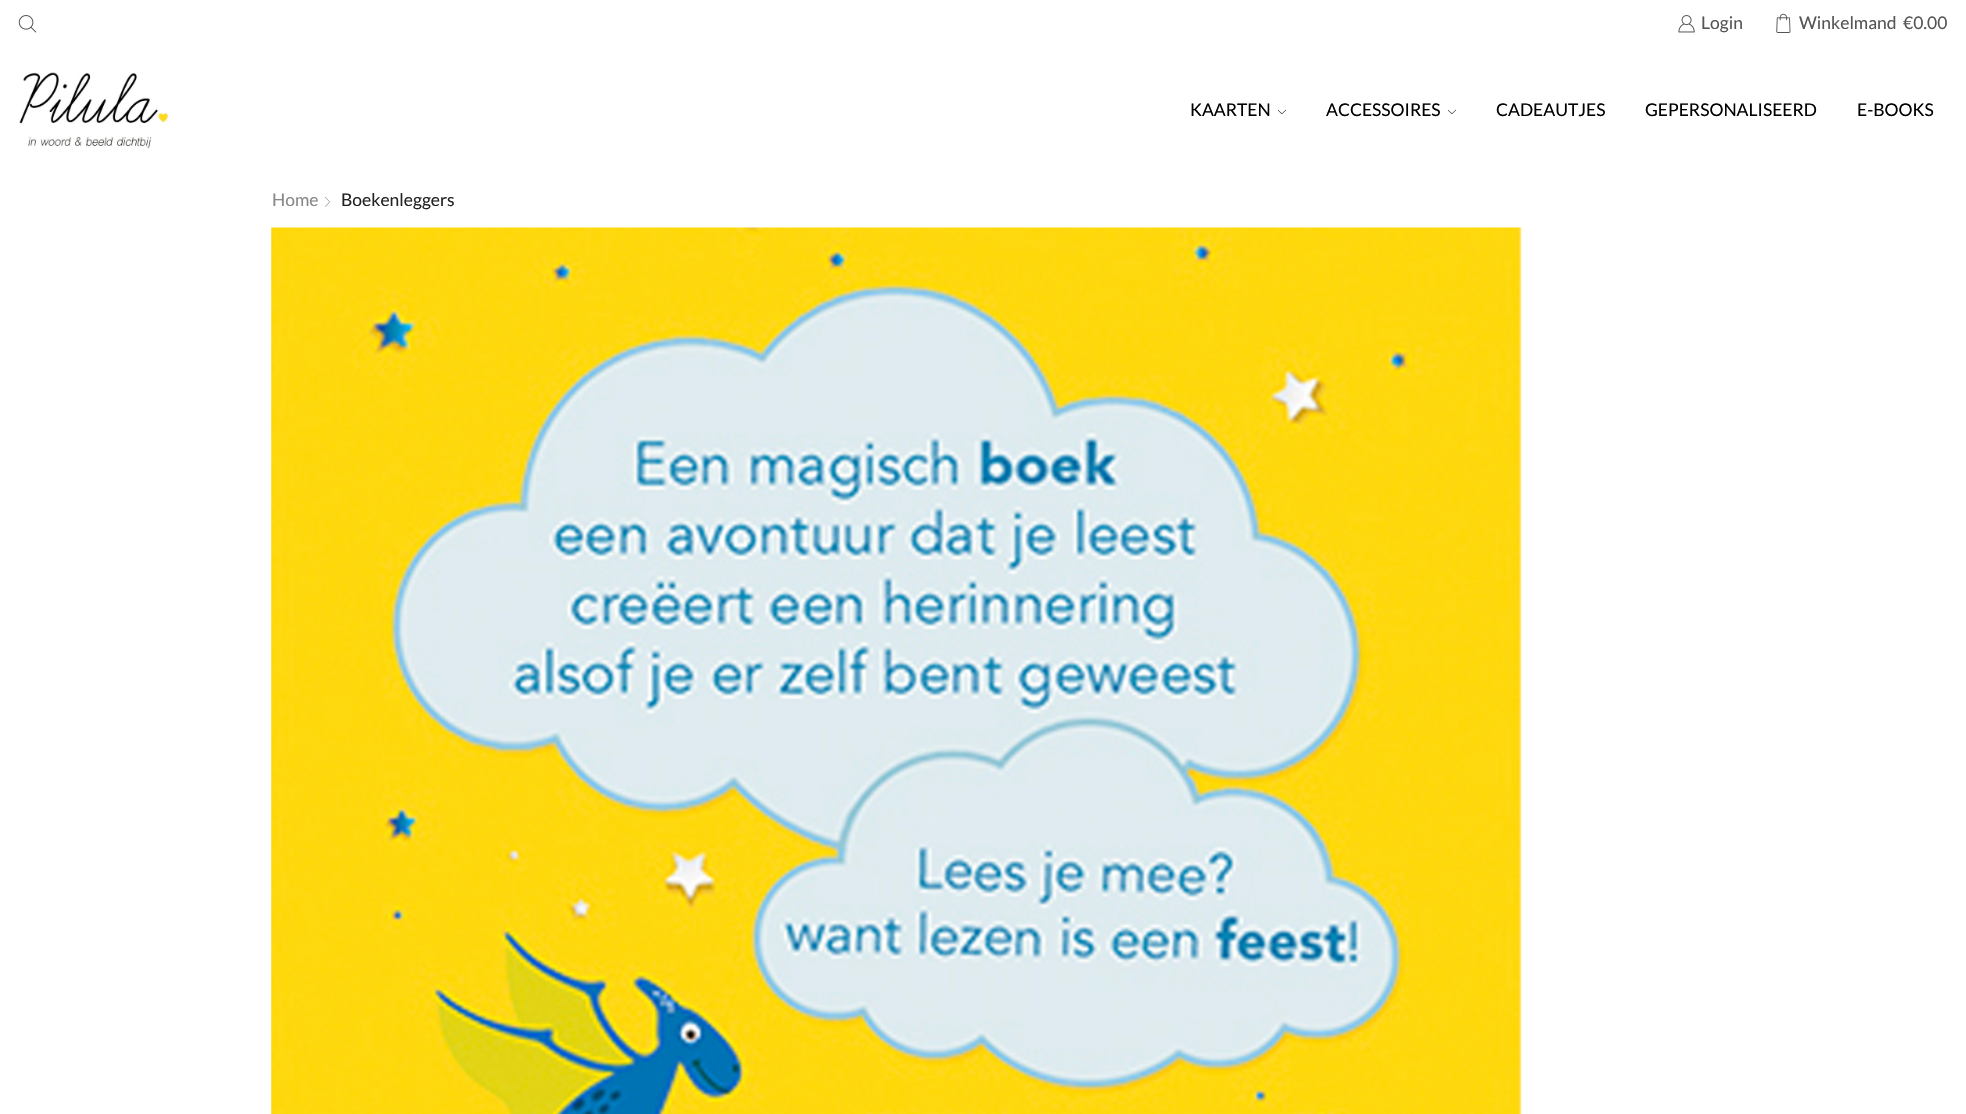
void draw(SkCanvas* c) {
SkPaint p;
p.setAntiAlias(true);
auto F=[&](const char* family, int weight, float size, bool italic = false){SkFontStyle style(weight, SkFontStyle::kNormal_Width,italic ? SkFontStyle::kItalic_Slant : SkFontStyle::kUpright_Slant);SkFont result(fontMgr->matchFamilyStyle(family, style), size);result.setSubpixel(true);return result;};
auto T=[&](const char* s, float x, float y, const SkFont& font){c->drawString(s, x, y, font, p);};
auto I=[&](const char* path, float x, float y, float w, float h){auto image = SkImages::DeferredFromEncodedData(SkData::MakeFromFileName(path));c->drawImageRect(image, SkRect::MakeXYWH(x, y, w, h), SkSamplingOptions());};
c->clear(0xffffffff);
I("1.png",18,15,19,18);
I("2.png",1678,15,17,18);
auto f1 = F("Lato",400,17.5);
p.setColor(0xff555555);
T("Login",1701,29,f1);
I("3.png",1776,13,15,20);
T("Winkelmand",1799,29,f1);
T("€0.00",1903,29,f1);
I("4.png",19,72,150,77);
p.setColor(0xff000000);
T("KAARTEN",1190,116,f1);
I("5.png",1278,109,8,6);
T("ACCESSOIRES",1326,116,f1);
I("5.png",1448,109,8,6);
T("CADEAUTJES",1496,116,f1);
T("GEPERSONALISEERD",1645,116,f1);
T("E-BOOKS",1857,116,f1);
p.setColor(0xff888888);
T("Home",272,206,f1);
I("6.png",325,197,5,10);
p.setColor(0xff222222);
T("Boekenleggers",341,206,f1);
I("7.png",271,227,1251,887);
}
